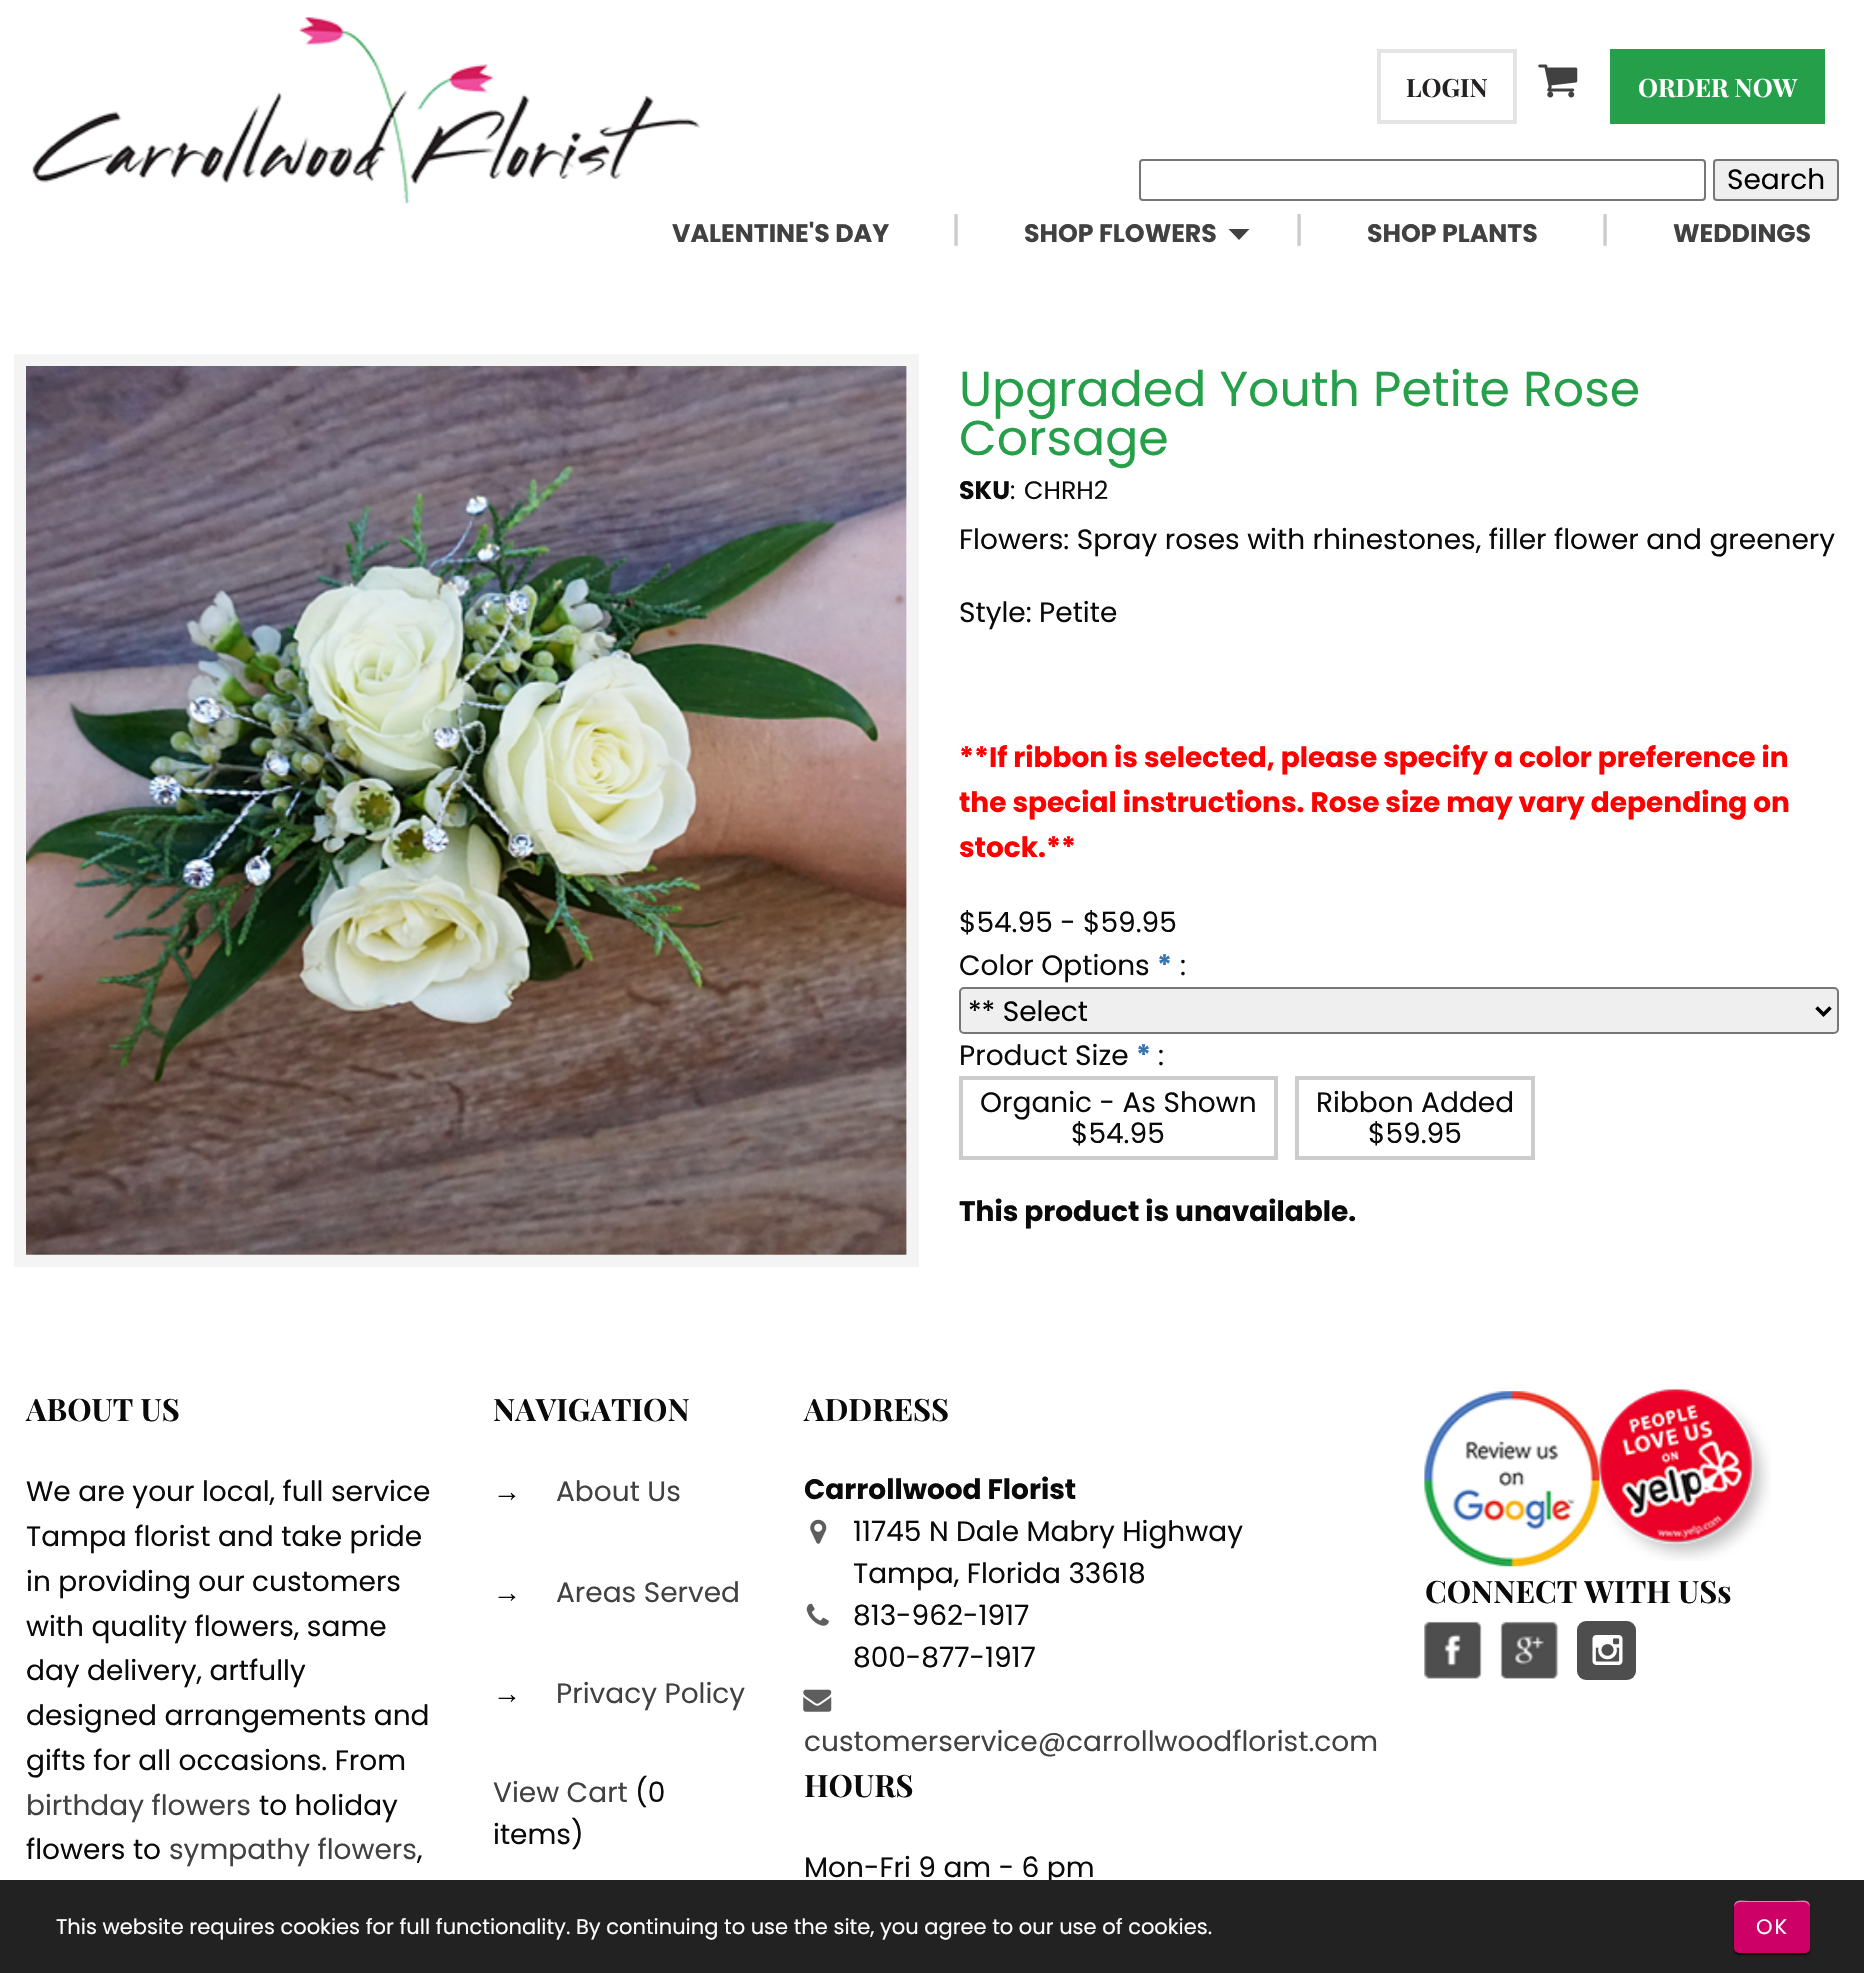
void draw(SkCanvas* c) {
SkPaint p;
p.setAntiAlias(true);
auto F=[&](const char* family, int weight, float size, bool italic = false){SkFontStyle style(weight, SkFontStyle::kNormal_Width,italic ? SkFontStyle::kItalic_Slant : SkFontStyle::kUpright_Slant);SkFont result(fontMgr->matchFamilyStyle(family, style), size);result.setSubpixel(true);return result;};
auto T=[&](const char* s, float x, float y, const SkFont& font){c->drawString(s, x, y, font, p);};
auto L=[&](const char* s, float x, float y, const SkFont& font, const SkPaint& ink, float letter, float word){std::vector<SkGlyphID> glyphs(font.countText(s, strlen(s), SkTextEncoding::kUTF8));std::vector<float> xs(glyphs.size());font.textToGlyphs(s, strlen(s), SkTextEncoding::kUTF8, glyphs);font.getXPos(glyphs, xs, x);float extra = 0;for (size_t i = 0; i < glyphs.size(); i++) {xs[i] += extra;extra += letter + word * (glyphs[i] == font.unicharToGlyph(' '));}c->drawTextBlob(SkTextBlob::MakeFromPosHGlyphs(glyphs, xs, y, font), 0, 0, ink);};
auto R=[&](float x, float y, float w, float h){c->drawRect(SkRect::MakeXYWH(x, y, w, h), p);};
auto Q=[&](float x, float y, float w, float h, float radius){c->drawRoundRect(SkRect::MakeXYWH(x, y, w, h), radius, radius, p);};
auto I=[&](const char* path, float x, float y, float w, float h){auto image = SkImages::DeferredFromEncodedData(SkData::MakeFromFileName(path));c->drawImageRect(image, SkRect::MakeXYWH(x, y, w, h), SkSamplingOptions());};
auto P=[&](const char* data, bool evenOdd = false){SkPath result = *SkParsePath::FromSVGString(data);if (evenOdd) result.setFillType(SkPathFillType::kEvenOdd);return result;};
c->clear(0xffffffff);
I("1.png",32,17,669,187);
p.setStroke(true);
p.setStrokeWidth(4);
p.setColor(0xffe4e4e4);
c->drawRect(SkRect::MakeXYWH(1379,51,136,71),p);
auto f1 = F("Playfair Display",700,25.25);
p.setStroke(false);
p.setColor(0xff252122);
T("LOGIN",1406,97,f1);
I("2.png",1538,64,40,34);
p.setColor(0xff269f4a);
R(1610,49,215,75);
p.setColor(0xffffffff);
T("ORDER NOW",1638,97,f1);
p.setStroke(true);
p.setStrokeWidth(2);
p.setColor(0xff767676);
c->drawRoundRect(SkRect::MakeXYWH(1140,160,565,40),3,3,p);
p.setStroke(false);
p.setColor(0xffefefef);
c->drawRoundRect(SkRect::MakeXYWH(1714,160,124,40),3,3,p);
p.setStroke(true);
p.setColor(0xff767676);
c->drawRoundRect(SkRect::MakeXYWH(1714,160,124,40),3,3,p);
auto f2 = F("Poppins",400,28);
p.setStroke(false);
p.setColor(0xff000000);
T("Search",1727,189,f2);
auto f3 = F("Poppins",700,25.25);
p.setColor(0xff424141);
T("VALENTINE'S DAY",672,242,f3);
auto f4 = F("Poppins",400,35);
p.setColor(0xffcccccc);
T("|",951,242,f4);
p.setColor(0xff424141);
T("SHOP FLOWERS",1024,242,f3);
c->drawPath(P("M1228.5 229h21l-10.5 11z"),p);
p.setColor(0xffcccccc);
T("|",1294,242,f4);
p.setColor(0xff424141);
T("SHOP PLANTS",1367,242,f3);
p.setColor(0xffcccccc);
T("|",1600,242,f4);
p.setColor(0xff424141);
T("WEDDINGS",1673,242,f3);
I("3.png",26,366,881,889);
p.setStroke(true);
p.setStrokeWidth(12);
p.setColor(0xfff4f4f4);
c->drawRect(SkRect::MakeXYWH(20,360,893,901),p);
auto f5 = F("Poppins",400,49);
p.setStroke(false);
p.setColor(0xff269f4a);
T("Upgraded Youth Petite Rose",959,406,f5);
T("Corsage",959,455,f5);
p.setColor(0xff0a0a0a);
T("SKU",959,499,f3);
auto f6 = F("Poppins",400,25.25);
T(":",1010,499,f6);
T("CHRH2",1024,499,f6);
T("Flowers: Spray roses with rhinestones, filler flower and greenery",959,549,f2);
T("Style: Petite",959,622,f2);
auto f7 = F("Poppins",700,28);
p.setColor(0xffff0000);
T("**If ribbon is selected, please specify a color preference in",959,767,f7);
T("the special instructions. Rose size may vary depending on",959,812,f7);
T("stock.**",959,857,f7);
p.setColor(0xff0a0a0a);
T("$54.95 - $59.95",959,932,f2);
T("Color Options",959,975,f2);
p.setColor(0xff3975ad);
T("*",1157,975,f7);
p.setColor(0xff0a0a0a);
T(":",1180,975,f2);
p.setColor(0xffefefef);
c->drawRoundRect(SkRect::MakeXYWH(960,988,878,45),4,4,p);
p.setStroke(true);
p.setStrokeWidth(2);
p.setColor(0xff767676);
c->drawRoundRect(SkRect::MakeXYWH(960,988,878,45),4,4,p);
p.setStrokeWidth(3.5);
p.setColor(0xff000000);
c->drawPath(P("M1816.5 1007.5l7 7l7-7"),p);
p.setStroke(false);
T("** Select",968,1021,f2);
p.setColor(0xff0a0a0a);
T("Product Size",959,1065,f2);
p.setColor(0xff3975ad);
T("*",1136,1065,f7);
p.setColor(0xff0a0a0a);
T(":",1158,1065,f2);
p.setStroke(true);
p.setStrokeWidth(4);
p.setColor(0xffcccccc);
c->drawRect(SkRect::MakeXYWH(961,1078,315,80),p);
p.setStroke(false);
p.setColor(0xff0a0a0a);
T("Organic - As Shown",980,1112,f2);
T("$54.95",1071,1143,f2);
p.setStroke(true);
p.setColor(0xffcccccc);
c->drawRect(SkRect::MakeXYWH(1297,1078,236,80),p);
p.setStroke(false);
p.setColor(0xff0a0a0a);
T("Ribbon Added",1316,1112,f2);
T("$59.95",1368,1143,f2);
T("This product is unavailable.",959,1221,f7);
auto f8 = F("Playfair Display",700,30.75);
T("ABOUT US",26,1421,f8);
T("We are your local, full service",26,1501,f2);
T("Tampa florist and take pride",26,1546,f2);
T("in providing our customers",26,1591,f2);
T("with quality flowers, same",26,1636,f2);
T("day delivery, artfully",26,1680,f2);
T("designed arrangements and",26,1725,f2);
T("gifts for all occasions. From",26,1770,f2);
p.setColor(0xff424141);
T("birthday flowers",26,1815,f2);
p.setColor(0xff0a0a0a);
T("to holiday",259,1815,f2);
T("flowers to",26,1859,f2);
p.setColor(0xff424141);
T("sympathy flowers",169,1859,f2);
p.setColor(0xff0a0a0a);
T(",",417,1859,f2);
T("NAVIGATION",493,1421,f8);
auto f9 = F("Liberation Sans",400,28);
T("→",493,1501,f9);
p.setColor(0xff424141);
T("About Us",556,1501,f2);
p.setColor(0xff0a0a0a);
T("→",493,1602,f9);
p.setColor(0xff424141);
T("Areas Served",556,1602,f2);
p.setColor(0xff0a0a0a);
T("→",493,1703,f9);
p.setColor(0xff424141);
T("Privacy Policy",556,1703,f2);
T("View Cart",493,1802,f2);
p.setColor(0xff0a0a0a);
T("(0",635,1802,f2);
T("items)",493,1844,f2);
T("ADDRESS",804,1421,f8);
T("Carrollwood Florist",804,1499,f7);
I("4.png",810,1519,17,25);
T("11745 N Dale Mabry Highway",853,1541,f2);
T("Tampa, Florida 33618",853,1583,f2);
I("5.png",806,1603,23,23);
T("813-962-1917",853,1625,f2);
T("800-877-1917",853,1667,f2);
I("6.png",803,1689,29,23);
p.setColor(0xff424141);
T("customerservice@carrollwoodflorist.com",804,1751,f2);
p.setColor(0xff0a0a0a);
T("HOURS",804,1797,f8);
T("Mon-Fri 9 am - 6 pm",804,1877,f2);
I("7.png",1424,1391,177,176);
I("8.png",1599,1389,172,172);
T("CONNECT WITH USs",1425,1603,f8);
I("9.png",1424,1621,58,58);
I("10.png",1500,1621,59,58);
p.setColor(0xff4e4e4e);
Q(1577,1621,59,59,9);
I("11.png",1592,1635,31,30);
p.setColor(0xff222222);
R(0,1880,1864,93);
auto f10 = F("Poppins",400,21);
p.setColor(0xffffffff);
T("This website requires cookies for full functionality. By continuing to use the site, you agree to our use of cookies.",56,1934,f10);
p.setColor(0xb3000000);
p.setMaskFilter(SkMaskFilter::MakeBlur(kNormal_SkBlurStyle, 1));
c->drawRoundRect(SkRect::MakeXYWH(1734,1902,76,53),5,5,p);
p.setMaskFilter(nullptr);
p.setColor(0xffcc0066);
Q(1734,1901,76,52,5);
p.setColor(0x80ffffff);
c->drawPath(P("M1740 1902h64c3 0 6 3 6 6c0-10-8-7-16-7h-44c-8 0-16-3-16 7c0-3 3-6 6-6z"),p);
p.setColor(0xffffffff);
L("OK",1756,1934,f10,p,2,0);
}
